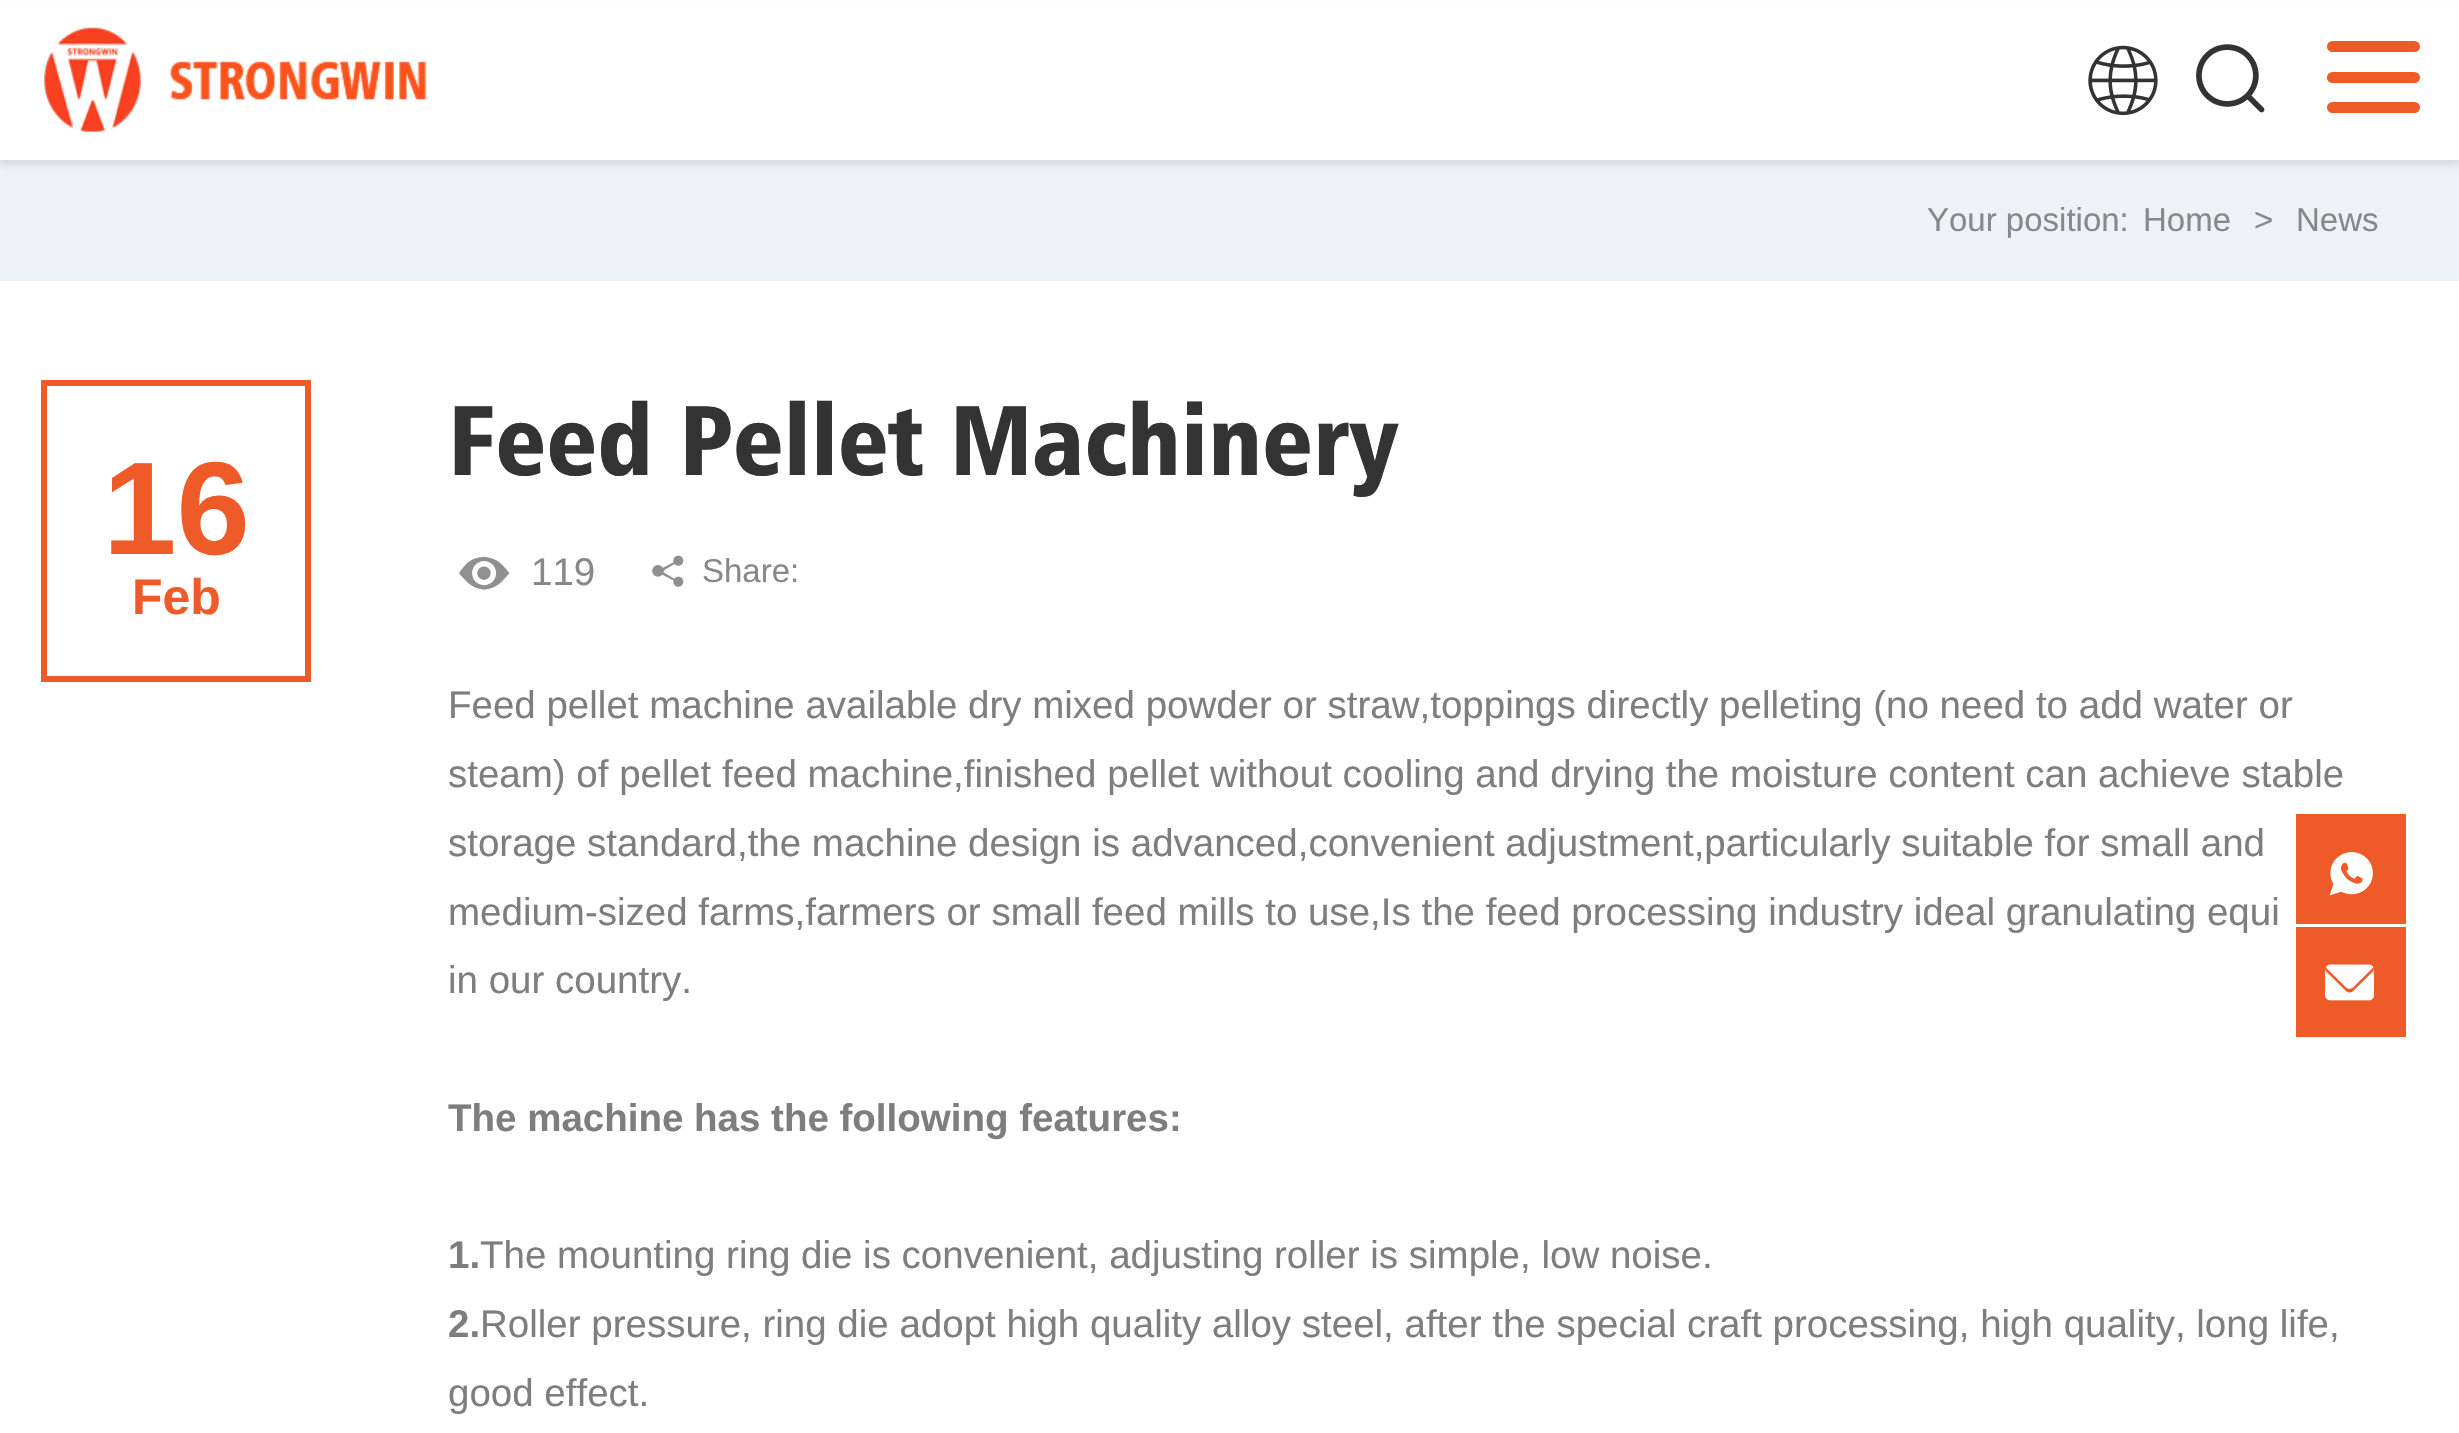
void draw(SkCanvas* c) {
SkPaint p;
p.setAntiAlias(true);
auto F=[&](const char* family, int weight, float size, bool italic = false){SkFontStyle style(weight, SkFontStyle::kNormal_Width,italic ? SkFontStyle::kItalic_Slant : SkFontStyle::kUpright_Slant);SkFont result(fontMgr->matchFamilyStyle(family, style), size);result.setSubpixel(true);return result;};
auto T=[&](const char* s, float x, float y, const SkFont& font){c->drawString(s, x, y, font, p);};
auto R=[&](float x, float y, float w, float h){c->drawRect(SkRect::MakeXYWH(x, y, w, h), p);};
auto Q=[&](float x, float y, float w, float h, float radius){c->drawRoundRect(SkRect::MakeXYWH(x, y, w, h), radius, radius, p);};
auto I=[&](const char* path, float x, float y, float w, float h){auto image = SkImages::DeferredFromEncodedData(SkData::MakeFromFileName(path));c->drawImageRect(image, SkRect::MakeXYWH(x, y, w, h), SkSamplingOptions());};
c->clear(0xffffffff);
p.setColor(0xffeef2f7);
R(0,160,2459,121);
p.setColor(0x1a000000);
p.setMaskFilter(SkMaskFilter::MakeBlur(kNormal_SkBlurStyle, 4));
c->drawRect(SkRect::MakeXYWH(0,6,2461,159),p);
p.setMaskFilter(nullptr);
p.setColor(0xffffffff);
R(0,1,2459,159);
I("1.png",43,27,384,105);
I("2.png",2088,45,70,71);
I("3.png",2196,44,69,69);
p.setColor(0xffef5a29);
Q(2327,41,93,11,5.5);
Q(2327,72,93,11,5.5);
Q(2327,102,93,11,5.5);
auto f1 = F("Liberation Sans",400,33);
p.setColor(0xff888888);
T("Your position:",1927,231,f1);
T("Home",2143,231,f1);
T(">",2254,231,f1);
T("News",2296,231,f1);
p.setStroke(true);
p.setStrokeWidth(6);
p.setColor(0xffef5a29);
c->drawRect(SkRect::MakeXYWH(44,383,264,296),p);
auto f2 = F("Liberation Sans",700,132);
p.setStroke(false);
T("16",103,554,f2);
auto f3 = F("Liberation Sans",700,50);
T("Feb",132,614,f3);
auto f4 = F("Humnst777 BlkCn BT",900,99);
p.setColor(0xff333333);
T("Feed Pellet Machinery",448,475,f4);
I("4.png",459,556,50,34);
auto f5 = F("Liberation Sans",400,38.5);
p.setColor(0xff888888);
T("119",531,585,f5);
I("5.png",652,555,32,32);
T("Share:",702,582,f1);
p.setColor(0xff7e7e7e);
T("Feed pellet machine available dry mixed powder or straw,toppings directly pelleting (no need to add water or",448,718,f5);
T("steam) of pellet feed machine,finished pellet without cooling and drying the moisture content can achieve stable",448,787,f5);
T("storage standard,the machine design is advanced,convenient adjustment,particularly suitable for small and",448,856,f5);
T("medium-sized farms,farmers or small feed mills to use,Is the feed processing industry ideal granulating equi",448,925,f5);
T("in our country.",448,993,f5);
auto f6 = F("Liberation Sans",700,38.5);
T("The machine has the following features:",448,1131,f6);
T("1.",448,1268,f6);
T("The mounting ring die is convenient, adjusting roller is simple, low noise.",480,1268,f5);
T("2.",448,1337,f6);
T("Roller pressure, ring die adopt high quality alloy steel, after the special craft processing, high quality, long life,",480,1337,f5);
T("good effect.",448,1406,f5);
p.setColor(0xffef5a29);
R(2296,814,110,110);
I("6.png",2329,852,44,44);
R(2296,927,110,110);
I("7.png",2325,964,49,37);
}
